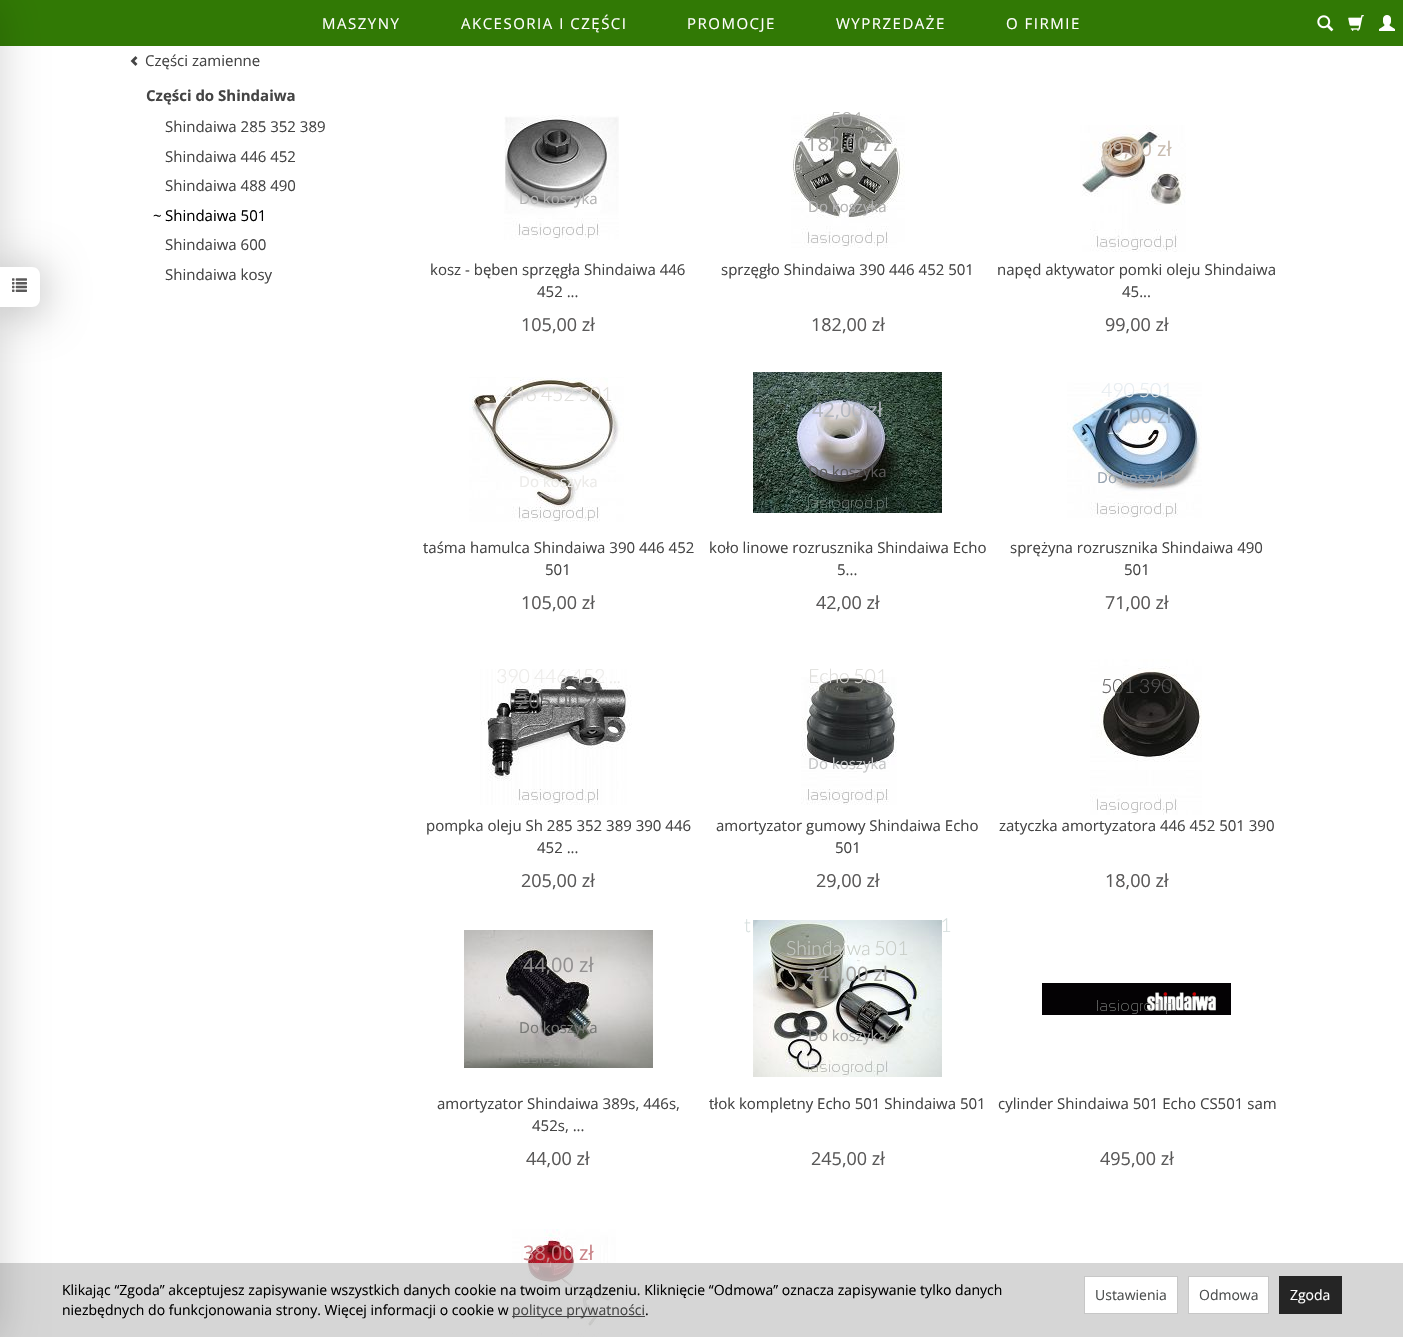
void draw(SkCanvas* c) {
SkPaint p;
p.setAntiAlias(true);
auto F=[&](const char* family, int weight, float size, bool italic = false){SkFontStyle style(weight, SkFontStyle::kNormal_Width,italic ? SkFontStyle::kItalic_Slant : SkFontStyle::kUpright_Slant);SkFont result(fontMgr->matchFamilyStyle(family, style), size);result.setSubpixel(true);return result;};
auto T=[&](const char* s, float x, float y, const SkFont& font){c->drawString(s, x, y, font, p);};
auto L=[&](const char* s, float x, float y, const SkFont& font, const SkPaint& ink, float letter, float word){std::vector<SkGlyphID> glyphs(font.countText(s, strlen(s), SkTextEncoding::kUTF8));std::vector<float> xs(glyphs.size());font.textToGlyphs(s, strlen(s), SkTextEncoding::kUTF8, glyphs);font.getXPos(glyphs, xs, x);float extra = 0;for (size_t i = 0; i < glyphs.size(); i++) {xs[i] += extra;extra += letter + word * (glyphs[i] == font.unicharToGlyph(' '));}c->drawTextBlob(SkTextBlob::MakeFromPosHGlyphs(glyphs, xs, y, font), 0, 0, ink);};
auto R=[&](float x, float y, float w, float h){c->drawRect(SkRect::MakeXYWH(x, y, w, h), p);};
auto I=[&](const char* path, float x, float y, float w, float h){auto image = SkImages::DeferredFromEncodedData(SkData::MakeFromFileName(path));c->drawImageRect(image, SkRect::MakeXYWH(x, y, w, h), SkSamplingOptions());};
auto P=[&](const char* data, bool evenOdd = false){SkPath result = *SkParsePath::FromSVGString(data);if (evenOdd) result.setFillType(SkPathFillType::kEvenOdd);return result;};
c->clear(0xffffffff);
p.setColor(0xff317905);
R(0,0,1403,46);
I("18.png",512,1229,104,108);
p.setColor(0xcccccccc);
R(0,1263,1403,74);
p.setColor(0x2b000000);
p.setMaskFilter(SkMaskFilter::MakeBlur(kNormal_SkBlurStyle, 22));
c->drawRect(SkRect::MakeXYWH(-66,4,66,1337),p);
p.setMaskFilter(nullptr);
p.setColor(0x59000000);
p.setMaskFilter(SkMaskFilter::MakeBlur(kNormal_SkBlurStyle, 22.5));
c->drawRoundRect(SkRect::MakeXYWH(0,271,40,40),8,8,p);
p.setMaskFilter(nullptr);
p.setColor(0xffffffff);
c->drawPath(P("M0 267h32c4.5 0 8 3.5 8 8v24c0 4.5-3.5 8-8 8h-32z"),p);
I("1.png",12,278,15,14);
auto f1 = F("Open Sans",400,15);
L("MASZYNY",322,29,f1,p,1.5,0);
L("AKCESORIA I CZĘŚCI",461,29,f1,p,1.5,0);
L("PROMOCJE",687,29,f1,p,1.5,0);
L("WYPRZEDAŻE",836,29,f1,p,1.5,0);
L("O FIRMIE",1006,29,f1,p,1.5,0);
I("2.png",1317,15,17,17);
I("3.png",1348,15,16,16);
I("4.png",1379,15,16,16);
I("5.png",130,56,8,10);
p.setColor(0xff444444);
T("Części zamienne",145,66,f1);
auto f2 = F("Open Sans",700,15);
T("Części do Shindaiwa",146,101,f2);
T("Shindaiwa 285 352 389",165,132,f1);
T("Shindaiwa 446 452",165,162,f1);
T("Shindaiwa 488 490",165,191,f1);
p.setColor(0xff000000);
T("~",153,221,f1);
T("Shindaiwa 501",165,221,f1);
p.setColor(0xff444444);
T("Shindaiwa 600",165,250,f1);
T("Shindaiwa kosy",165,280,f1);
I("6.png",504,115,115,125);
p.setColor(0xffb3b3b3);
T("Do koszyka",519,204,f1);
p.setColor(0xff444444);
T("kosz - bęben sprzęgła Shindaiwa 446",430,275,f1);
T("452 ...",537,297,f1);
auto f3 = F("Open Sans",400,18);
p.setColor(0xff5a5959);
T("105,00 zł",521,331,f3);
I("7.png",791,114,114,134);
auto f4 = F("Lato",300,19.5);
p.setColor(0xffa5a5a3);
T("501",830,126,f4);
auto f5 = F("Open Sans",400,20);
T("182,00 zł",806,151,f5);
p.setColor(0xffb3b3b3);
T("Do koszyka",808,212,f1);
p.setColor(0xff444444);
T("sprzęgło Shindaiwa 390 446 452 501",721,275,f1);
p.setColor(0xff5a5959);
T("182,00 zł",811,331,f3);
I("8.png",1080,125,106,127);
p.setColor(0xffc8bcb0);
T("99,00 zł",1101,156,f5);
p.setColor(0xff444444);
T("napęd aktywator pomki oleju Shindaiwa",997,275,f1);
T("45...",1122,297,f1);
p.setColor(0xff5a5959);
T("99,00 zł",1105,331,f3);
I("9.png",469,377,155,145);
p.setColor(0xffdeddda);
T("446 452 501",503,401,f4);
p.setColor(0xffecebe9);
T("Do koszyka",519,487,f1);
p.setColor(0xff444444);
T("taśma hamulca Shindaiwa 390 446 452",423,553,f1);
T("501",545,575,f1);
p.setColor(0xff5a5959);
T("105,00 zł",521,609,f3);
I("10.png",753,372,189,141);
p.setColor(0xffb4b8c0);
T("42,00 zł",812,417,f5);
p.setColor(0xff5a5959);
T("Do koszyka",808,477,f1);
p.setColor(0xff444444);
T("koło linowe rozrusznika Shindaiwa Echo",709,553,f1);
T("5...",837,575,f1);
p.setColor(0xff5a5959);
T("42,00 zł",816,609,f3);
I("11.png",1067,382,135,136);
p.setColor(0xffe6ecf0);
T("490 501",1101,397,f4);
p.setColor(0xff9bb0c5);
T("71,00 zł",1101,423,f5);
p.setColor(0xff96a2ae);
T("Do koszyka",1097,483,f1);
p.setColor(0xff444444);
T("sprężyna rozrusznika Shindaiwa 490",1010,553,f1);
T("501",1124,575,f1);
p.setColor(0xff5a5959);
T("71,00 zł",1105,609,f3);
I("12.png",480,669,152,136);
p.setColor(0xffecebe9);
T("390 446 452 ...",496,683,f4);
p.setColor(0xff6f6f6f);
T("205,00 zł",517,708,f5);
p.setColor(0xff444444);
T("pompka oleju Sh 285 352 389 390 446",426,831,f1);
T("452 ...",537,853,f1);
p.setColor(0xff5a5959);
T("205,00 zł",521,887,f3);
I("13.png",801,677,96,128);
p.setColor(0xffdeddda);
T("Echo 501",808,683,f4);
p.setColor(0xff4b4e4e);
T(",",835,708,f5);
p.setColor(0xffc4c5c6);
T("Do koszyka",808,769,f1);
p.setColor(0xff444444);
T("amortyzator gumowy Shindaiwa Echo",716,831,f1);
T("501",835,853,f1);
p.setColor(0xff5a5959);
T("29,00 zł",816,887,f3);
I("14.png",1090,659,112,156);
T("501 390",1101,693,f4);
p.setColor(0xff444444);
T("zatyczka amortyzatora 446 452 501 390",999,831,f1);
p.setColor(0xff5a5959);
T("18,00 zł",1105,887,f3);
I("15.png",464,930,189,138);
p.setColor(0xff929090);
T("44,00 zł",523,972,f5);
p.setColor(0xff767775);
T("Do koszyka",519,1033,f1);
p.setColor(0xff444444);
T("amortyzator Shindaiwa 389s, 446s,",437,1109,f1);
T("452s, ...",532,1131,f1);
p.setColor(0xff5a5959);
T("44,00 zł",526,1165,f3);
p.setColor(0xffd5dedd);
T("t",744,932,f4);
T("1",940,932,f4);
I("16.png",753,920,189,157);
p.setColor(0xffc6cbc5);
T("Shindaiwa 501",786,955,f4);
p.setColor(0xffa5a5a3);
T("245,00 zł",806,981,f5);
T("Do koszyka",808,1041,f1);
p.setColor(0xff444444);
T("tłok kompletny Echo 501 Shindaiwa 501",709,1109,f1);
p.setColor(0xff5a5959);
T("245,00 zł",811,1165,f3);
I("17.png",1042,983,189,32);
p.setColor(0xff444444);
T("cylinder Shindaiwa 501 Echo CS501 sam",998,1109,f1);
p.setColor(0xff5a5959);
T("495,00 zł",1100,1165,f3);
p.setColor(0xffc98388);
T("38,00 zł",523,1260,f5);
auto f6 = F("Open Sans",400,14);
p.setColor(0xff000000);
T("Klikając “Zgoda” akceptujesz zapisywanie wszystkich danych cookie na twoim urządzeniu. Kliknięcie “Odmowa” oznacza zapisywanie tylko danych",62,1295,f6);
T("niezbędnych do funkcjonowania strony. Więcej informacji o cookie w",62,1315,f6);
p.setColor(0xff444444);
R(512,1316,133,1);
T("polityce prywatności",512,1315,f6);
p.setColor(0xff000000);
T(".",645,1315,f6);
p.setColor(0xffffffff);
c->drawRect(SkRect::MakeXYWH(1084.5,1276.5,93,37),p);
p.setStroke(true);
p.setStrokeWidth(1);
p.setColor(0xffc7c7c7);
c->drawRect(SkRect::MakeXYWH(1084.5,1276.5,93,37),p);
p.setStroke(false);
p.setColor(0xff4b4e4e);
T("Ustawienia",1095,1300,f6);
p.setColor(0xffffffff);
c->drawRect(SkRect::MakeXYWH(1188.5,1276.5,80,37),p);
p.setStroke(true);
p.setColor(0xffc7c7c7);
c->drawRect(SkRect::MakeXYWH(1188.5,1276.5,80,37),p);
p.setStroke(false);
p.setColor(0xff4b4e4e);
T("Odmowa",1199,1300,f6);
p.setColor(0xff252525);
R(1279,1276,63,38);
p.setColor(0xffffffff);
T("Zgoda",1290,1300,f6);
}
